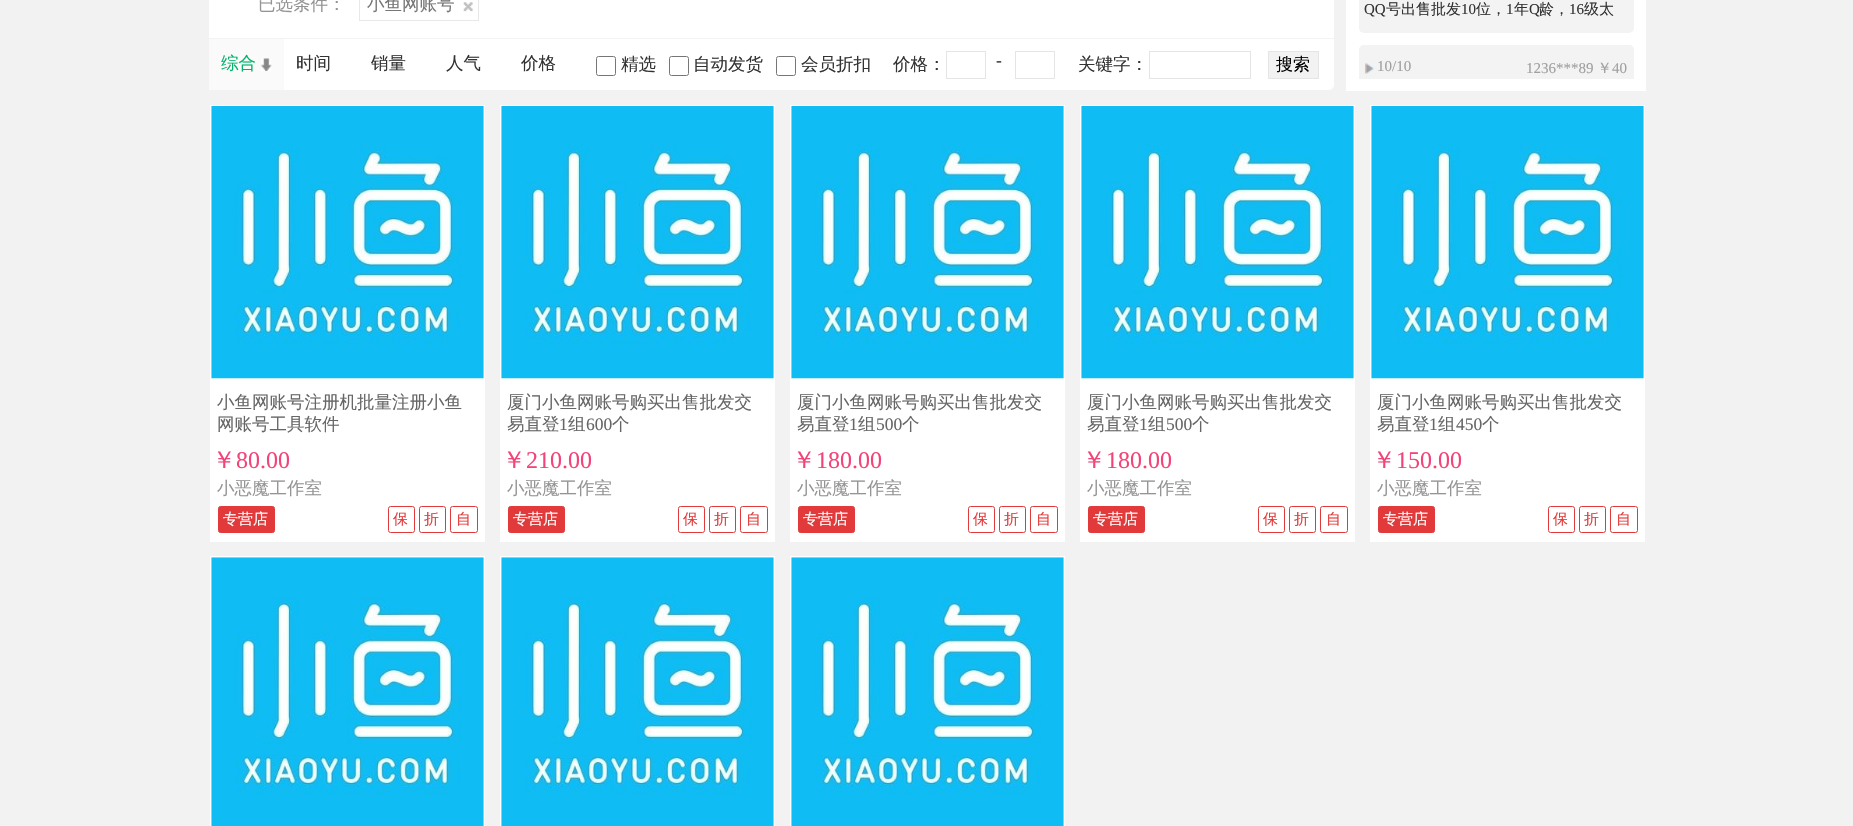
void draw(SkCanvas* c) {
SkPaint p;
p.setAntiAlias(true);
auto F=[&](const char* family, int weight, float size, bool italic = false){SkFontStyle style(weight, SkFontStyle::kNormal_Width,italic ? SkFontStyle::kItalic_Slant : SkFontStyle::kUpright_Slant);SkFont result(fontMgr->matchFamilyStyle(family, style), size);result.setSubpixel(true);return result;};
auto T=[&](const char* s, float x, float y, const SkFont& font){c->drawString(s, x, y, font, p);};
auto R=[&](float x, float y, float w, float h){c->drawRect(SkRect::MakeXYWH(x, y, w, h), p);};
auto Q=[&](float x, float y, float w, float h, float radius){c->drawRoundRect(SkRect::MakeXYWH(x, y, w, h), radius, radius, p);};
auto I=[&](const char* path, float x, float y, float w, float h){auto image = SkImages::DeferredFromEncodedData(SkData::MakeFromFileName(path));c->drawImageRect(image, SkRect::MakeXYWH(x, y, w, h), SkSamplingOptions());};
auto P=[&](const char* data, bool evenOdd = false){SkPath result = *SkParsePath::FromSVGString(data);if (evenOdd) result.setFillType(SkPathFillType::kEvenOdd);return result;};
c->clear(0xfff2f2f3);
p.setColor(0xffffffff);
Q(209,-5,1125,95,5);
p.setColor(0xfff3f3f3);
R(209,38,1125,1);
auto f1 = F("WenQuanYi Zen Hei",500,17.5);
p.setColor(0xff949494);
T("已选条件：",258,10,f1);
I("1.png",463,2,10,10);
p.setStroke(true);
p.setStrokeWidth(1);
p.setColor(0xffe8e8e8);
c->drawRect(SkRect::MakeXYWH(359.5,-.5,119,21),p);
p.setStroke(false);
p.setColor(0xff767676);
T("小鱼网账号",367,10,f1);
p.setColor(0xfffafafa);
R(209,39,75,51);
I("2.png",261,58,11,13);
p.setColor(0xff00b369);
T("综合",221,69,f1);
p.setColor(0xff333333);
T("时间",296,69,f1);
T("销量",371,69,f1);
T("人气",446,69,f1);
T("价格",521,69,f1);
p.setStroke(true);
p.setColor(0xff767676);
c->drawRoundRect(SkRect::MakeXYWH(596.5,56.5,19,19),2,2,p);
p.setStroke(false);
p.setColor(0xff333333);
T("精选",621,70,f1);
p.setStroke(true);
p.setColor(0xff767676);
c->drawRoundRect(SkRect::MakeXYWH(669.5,56.5,19,19),2,2,p);
p.setStroke(false);
p.setColor(0xff333333);
T("自动发货",693,70,f1);
p.setStroke(true);
p.setColor(0xff767676);
c->drawRoundRect(SkRect::MakeXYWH(776.5,56.5,19,19),2,2,p);
p.setStroke(false);
p.setColor(0xff333333);
T("会员折扣",801,70,f1);
T("价格：",893,70,f1);
p.setStroke(true);
p.setColor(0xffe5e5e5);
c->drawRect(SkRect::MakeXYWH(946.5,51.5,39,27),p);
auto f2 = F("Liberation Serif",400,17.5);
p.setStroke(false);
p.setColor(0xff333333);
T("-",996,66,f2);
p.setStroke(true);
p.setColor(0xffe5e5e5);
c->drawRect(SkRect::MakeXYWH(1015.5,51.5,39,27),p);
p.setStroke(false);
p.setColor(0xff333333);
T("关键字：",1078,70,f1);
p.setStroke(true);
p.setColor(0xffe5e5e5);
c->drawRect(SkRect::MakeXYWH(1149.5,51.5,101,27),p);
p.setStroke(false);
p.setColor(0xfff2f2f2);
c->drawRect(SkRect::MakeXYWH(1268.5,51.5,50,27),p);
p.setStroke(true);
p.setColor(0xffe5e5e5);
c->drawRect(SkRect::MakeXYWH(1268.5,51.5,50,27),p);
auto f3 = F("WenQuanYi Zen Hei",500,17);
p.setStroke(false);
p.setColor(0xff000000);
T("搜索",1276,70,f3);
p.setColor(0xffffffff);
R(1346,0,300,91);
p.setColor(0xfff3f3f3);
Q(1359,-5,275,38,5);
auto f4 = F("Liberation Serif",400,15);
p.setColor(0xff333333);
T("QQ",1364,14,f4);
auto f5 = F("WenQuanYi Zen Hei",500,15);
T("号出售批发",1386,14,f5);
T("10",1461,14,f4);
T("位，",1476,14,f5);
T("1",1506,14,f4);
T("年",1514,14,f5);
T("Q",1529,14,f4);
T("龄，",1539,14,f5);
T("16",1569,14,f4);
T("级太",1584,14,f5);
p.setColor(0xfff3f3f3);
c->drawPath(P("M1364 45h265c3 0 5 2 5 5v29h-275v-29c0-3 2-5 5-5z"),p);
I("3.png",1365,63,9,11);
p.setColor(0xffa0a0a0);
T("10/10",1377,71,f4);
T("1236***89",1526,73,f4);
T("￥",1597,73,f5);
T("40",1612,73,f4);
p.setColor(0xffffffff);
R(210,105,275,437);
I("4.png",211,106,273,273);
p.setColor(0xff666666);
T("小鱼网账号注册机批量注册小鱼",217,408,f1);
T("网账号工具软件",217,430,f1);
auto f6 = F("WenQuanYi Zen Hei",500,24);
p.setColor(0xfff34479);
T("￥",212,468,f6);
auto f7 = F("Liberation Serif",400,24);
T("80.00",236,468,f7);
p.setColor(0xff949494);
T("小恶魔工作室",217,494,f1);
p.setColor(0xffe23a3a);
c->drawRoundRect(SkRect::MakeXYWH(218.5,506.5,56,26),2,2,p);
p.setStroke(true);
c->drawRoundRect(SkRect::MakeXYWH(218.5,506.5,56,26),2,2,p);
p.setStroke(false);
p.setColor(0xffffffff);
T("专营店",223,524,f5);
p.setStroke(true);
p.setColor(0xffe23a3a);
c->drawRoundRect(SkRect::MakeXYWH(388.5,506.5,26,26),2,2,p);
p.setStroke(false);
T("保",393,524,f5);
p.setStroke(true);
c->drawRoundRect(SkRect::MakeXYWH(419.5,506.5,26,26),2,2,p);
p.setStroke(false);
T("折",424,524,f5);
p.setStroke(true);
c->drawRoundRect(SkRect::MakeXYWH(450.5,506.5,27,26),2,2,p);
p.setStroke(false);
T("自",456,524,f5);
p.setColor(0xffffffff);
R(500,105,275,437);
I("5.png",501,106,273,273);
p.setColor(0xff666666);
T("厦门小鱼网账号购买出售批发交",507,408,f1);
T("易直登",507,430,f1);
T("1",559,430,f2);
T("组",568,430,f1);
T("600",586,430,f2);
T("个",612,430,f1);
p.setColor(0xfff34479);
T("￥",502,468,f6);
T("210.00",526,468,f7);
p.setColor(0xff949494);
T("小恶魔工作室",507,494,f1);
p.setColor(0xffe23a3a);
c->drawRoundRect(SkRect::MakeXYWH(508.5,506.5,56,26),2,2,p);
p.setStroke(true);
c->drawRoundRect(SkRect::MakeXYWH(508.5,506.5,56,26),2,2,p);
p.setStroke(false);
p.setColor(0xffffffff);
T("专营店",513,524,f5);
p.setStroke(true);
p.setColor(0xffe23a3a);
c->drawRoundRect(SkRect::MakeXYWH(678.5,506.5,26,26),2,2,p);
p.setStroke(false);
T("保",683,524,f5);
p.setStroke(true);
c->drawRoundRect(SkRect::MakeXYWH(709.5,506.5,26,26),2,2,p);
p.setStroke(false);
T("折",714,524,f5);
p.setStroke(true);
c->drawRoundRect(SkRect::MakeXYWH(740.5,506.5,27,26),2,2,p);
p.setStroke(false);
T("自",746,524,f5);
p.setColor(0xffffffff);
R(790,105,275,437);
I("4.png",791,106,273,273);
p.setColor(0xff666666);
T("厦门小鱼网账号购买出售批发交",797,408,f1);
T("易直登",797,430,f1);
T("1",849,430,f2);
T("组",858,430,f1);
T("500",876,430,f2);
T("个",902,430,f1);
p.setColor(0xfff34479);
T("￥",792,468,f6);
T("180.00",816,468,f7);
p.setColor(0xff949494);
T("小恶魔工作室",797,494,f1);
p.setColor(0xffe23a3a);
c->drawRoundRect(SkRect::MakeXYWH(798.5,506.5,56,26),2,2,p);
p.setStroke(true);
c->drawRoundRect(SkRect::MakeXYWH(798.5,506.5,56,26),2,2,p);
p.setStroke(false);
p.setColor(0xffffffff);
T("专营店",803,524,f5);
p.setStroke(true);
p.setColor(0xffe23a3a);
c->drawRoundRect(SkRect::MakeXYWH(968.5,506.5,26,26),2,2,p);
p.setStroke(false);
T("保",973,524,f5);
p.setStroke(true);
c->drawRoundRect(SkRect::MakeXYWH(999.5,506.5,26,26),2,2,p);
p.setStroke(false);
T("折",1004,524,f5);
p.setStroke(true);
c->drawRoundRect(SkRect::MakeXYWH(1030.5,506.5,27,26),2,2,p);
p.setStroke(false);
T("自",1036,524,f5);
p.setColor(0xffffffff);
R(1080,105,275,437);
I("5.png",1081,106,273,273);
p.setColor(0xff666666);
T("厦门小鱼网账号购买出售批发交",1087,408,f1);
T("易直登",1087,430,f1);
T("1",1139,430,f2);
T("组",1148,430,f1);
T("500",1166,430,f2);
T("个",1192,430,f1);
p.setColor(0xfff34479);
T("￥",1082,468,f6);
T("180.00",1106,468,f7);
p.setColor(0xff949494);
T("小恶魔工作室",1087,494,f1);
p.setColor(0xffe23a3a);
c->drawRoundRect(SkRect::MakeXYWH(1088.5,506.5,56,26),2,2,p);
p.setStroke(true);
c->drawRoundRect(SkRect::MakeXYWH(1088.5,506.5,56,26),2,2,p);
p.setStroke(false);
p.setColor(0xffffffff);
T("专营店",1093,524,f5);
p.setStroke(true);
p.setColor(0xffe23a3a);
c->drawRoundRect(SkRect::MakeXYWH(1258.5,506.5,26,26),2,2,p);
p.setStroke(false);
T("保",1263,524,f5);
p.setStroke(true);
c->drawRoundRect(SkRect::MakeXYWH(1289.5,506.5,26,26),2,2,p);
p.setStroke(false);
T("折",1294,524,f5);
p.setStroke(true);
c->drawRoundRect(SkRect::MakeXYWH(1320.5,506.5,27,26),2,2,p);
p.setStroke(false);
T("自",1326,524,f5);
p.setColor(0xffffffff);
R(1370,105,275,437);
I("6.png",1371,106,273,273);
p.setColor(0xff666666);
T("厦门小鱼网账号购买出售批发交",1377,408,f1);
T("易直登",1377,430,f1);
T("1",1429,430,f2);
T("组",1438,430,f1);
T("450",1456,430,f2);
T("个",1482,430,f1);
p.setColor(0xfff34479);
T("￥",1372,468,f6);
T("150.00",1396,468,f7);
p.setColor(0xff949494);
T("小恶魔工作室",1377,494,f1);
p.setColor(0xffe23a3a);
c->drawRoundRect(SkRect::MakeXYWH(1378.5,506.5,56,26),2,2,p);
p.setStroke(true);
c->drawRoundRect(SkRect::MakeXYWH(1378.5,506.5,56,26),2,2,p);
p.setStroke(false);
p.setColor(0xffffffff);
T("专营店",1383,524,f5);
p.setStroke(true);
p.setColor(0xffe23a3a);
c->drawRoundRect(SkRect::MakeXYWH(1548.5,506.5,26,26),2,2,p);
p.setStroke(false);
T("保",1553,524,f5);
p.setStroke(true);
c->drawRoundRect(SkRect::MakeXYWH(1579.5,506.5,26,26),2,2,p);
p.setStroke(false);
T("折",1584,524,f5);
p.setStroke(true);
c->drawRoundRect(SkRect::MakeXYWH(1610.5,506.5,27,26),2,2,p);
p.setStroke(false);
T("自",1616,524,f5);
p.setColor(0xffffffff);
R(210,556,275,270);
I("7.png",211,557,273,269);
R(500,556,275,270);
I("8.png",501,557,273,269);
R(790,556,275,270);
I("7.png",791,557,273,269);
}
